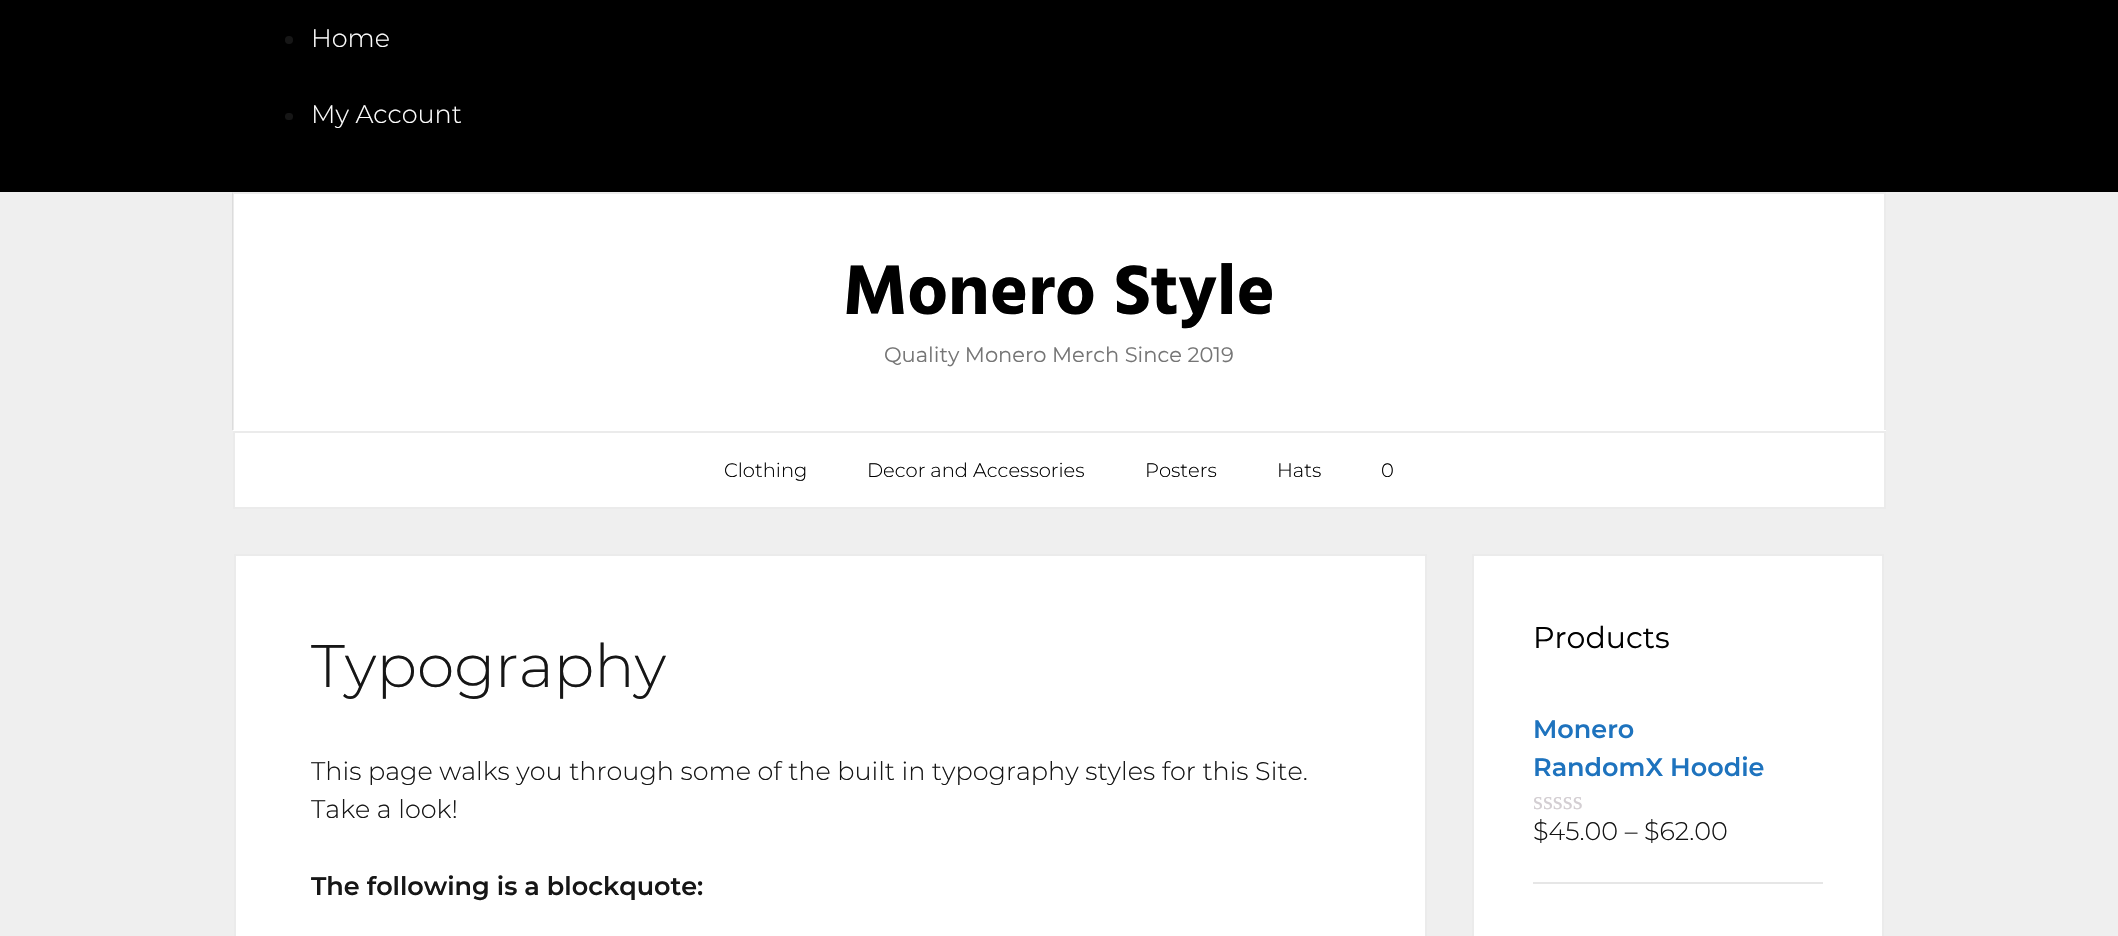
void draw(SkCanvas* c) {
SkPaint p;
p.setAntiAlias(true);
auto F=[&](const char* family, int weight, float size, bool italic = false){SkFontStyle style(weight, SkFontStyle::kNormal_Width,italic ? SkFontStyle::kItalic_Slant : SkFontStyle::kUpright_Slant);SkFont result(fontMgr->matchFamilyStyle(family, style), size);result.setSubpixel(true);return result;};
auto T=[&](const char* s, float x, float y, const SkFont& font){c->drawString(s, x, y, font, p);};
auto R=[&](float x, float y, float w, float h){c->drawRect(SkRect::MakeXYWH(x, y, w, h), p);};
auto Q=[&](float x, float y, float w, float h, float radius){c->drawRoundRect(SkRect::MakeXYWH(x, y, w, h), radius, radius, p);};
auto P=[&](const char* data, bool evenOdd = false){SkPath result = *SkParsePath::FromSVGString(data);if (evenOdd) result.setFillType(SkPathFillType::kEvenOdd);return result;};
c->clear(0xffefefef);
p.setColor(0xff000000);
R(0,0,2118,192);
p.setColor(0xff161616);
c->drawCircle(289,40,4,p);
auto f1 = F("Montserrat",300,25.5);
p.setColor(0xffffffff);
T("Home",311,47,f1);
p.setColor(0xff161616);
Q(285,113,8,7,3.5);
p.setColor(0xffffffff);
T("My Account",311,123,f1);
R(233,192,1653,239);
p.setColor(0xffebebeb);
c->drawPath(P("M232 192h1654l-2 2h-1650z"),p);
p.setColor(0x14000000);
c->drawPath(P("M1886 192v238h-2v-236z"),p);
c->drawPath(P("M232 430v-238l2 2v236z"),p);
auto f2 = F("Hind",700,72);
p.setColor(0xff000000);
T("Monero Style",843,314,f2);
auto f3 = F("Montserrat",400,21);
p.setColor(0xff757575);
T("Quality Monero Merch Since 2019",884,362,f3);
p.setColor(0xffffffff);
c->drawRect(SkRect::MakeXYWH(234,432,1651,76),p);
p.setStroke(true);
p.setStrokeWidth(2);
p.setColor(0xffebebeb);
c->drawRect(SkRect::MakeXYWH(234,432,1651,76),p);
auto f4 = F("Montserrat",300,19.5);
p.setStroke(false);
p.setColor(0xff000000);
T("Clothing",724,477,f4);
T("Decor and Accessories",867,477,f4);
T("Posters",1145,477,f4);
T("Hats",1277,477,f4);
T("0",1381,477,f4);
p.setColor(0xffffffff);
c->drawRect(SkRect::MakeXYWH(235,555,1191,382),p);
p.setStroke(true);
p.setColor(0xffebebeb);
c->drawRect(SkRect::MakeXYWH(235,555,1191,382),p);
auto f5 = F("Montserrat",300,60);
p.setStroke(false);
p.setColor(0xff161616);
T("Typography",311,687,f5);
T("This page walks you through some of the built in typography styles for this Site.",311,780,f1);
T("Take a look!",311,818,f1);
auto f6 = F("Montserrat",600,25.5);
T("The following is a blockquote:",311,895,f6);
p.setColor(0xffffffff);
c->drawRect(SkRect::MakeXYWH(1473,555,410,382),p);
p.setStroke(true);
p.setColor(0xffebebeb);
c->drawRect(SkRect::MakeXYWH(1473,555,410,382),p);
auto f7 = F("Montserrat",400,30);
p.setStroke(false);
p.setColor(0xff000000);
T("Products",1533,648,f7);
p.setColor(0xffe6e6e6);
R(1533,882,290,2);
p.setColor(0xff1e73be);
T("Monero",1533,738,f6);
T("RandomX Hoodie",1533,776,f6);
auto f8 = F("Liberation Serif",400,25.5);
p.setColor(0xffd3ced2);
T("sssss",1533,809,f8);
p.setColor(0xff161616);
T("$45.00 – $62.00",1533,840,f1);
}
